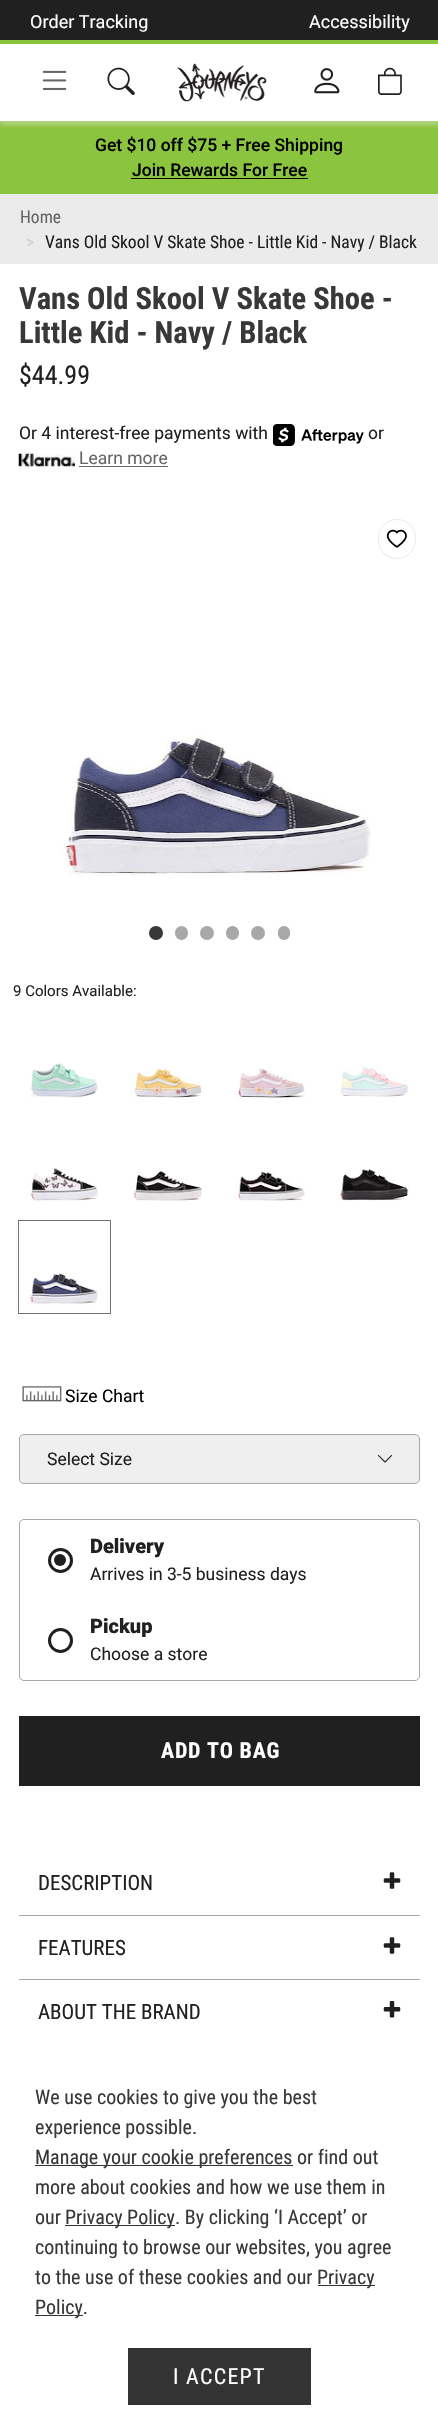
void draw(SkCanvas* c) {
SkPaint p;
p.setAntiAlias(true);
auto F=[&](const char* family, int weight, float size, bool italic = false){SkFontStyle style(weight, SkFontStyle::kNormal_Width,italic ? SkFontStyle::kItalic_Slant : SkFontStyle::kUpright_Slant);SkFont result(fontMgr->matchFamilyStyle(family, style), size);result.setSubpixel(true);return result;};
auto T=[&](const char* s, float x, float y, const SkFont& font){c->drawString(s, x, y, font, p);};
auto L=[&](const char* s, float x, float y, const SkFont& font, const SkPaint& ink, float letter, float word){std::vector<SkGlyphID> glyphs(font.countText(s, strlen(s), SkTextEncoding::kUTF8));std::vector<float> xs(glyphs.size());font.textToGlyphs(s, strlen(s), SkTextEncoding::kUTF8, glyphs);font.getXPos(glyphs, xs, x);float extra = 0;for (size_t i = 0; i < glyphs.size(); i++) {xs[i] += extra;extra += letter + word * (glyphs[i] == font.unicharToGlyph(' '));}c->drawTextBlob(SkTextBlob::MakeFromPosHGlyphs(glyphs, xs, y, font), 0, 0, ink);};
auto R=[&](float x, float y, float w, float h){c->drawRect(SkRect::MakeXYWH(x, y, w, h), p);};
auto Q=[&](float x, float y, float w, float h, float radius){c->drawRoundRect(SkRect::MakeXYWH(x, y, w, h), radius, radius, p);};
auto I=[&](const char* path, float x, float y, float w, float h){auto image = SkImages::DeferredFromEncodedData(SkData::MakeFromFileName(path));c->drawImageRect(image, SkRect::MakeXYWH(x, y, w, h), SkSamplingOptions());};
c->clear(0xffebebeb);
p.setColor(0xff8bc43e);
R(0,121,438,73);
p.setColor(0x66ebebeb);
p.setMaskFilter(SkMaskFilter::MakeBlur(kNormal_SkBlurStyle, 2));
c->drawRect(SkRect::MakeXYWH(0,4,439,121),p);
p.setMaskFilter(nullptr);
p.setColor(0xffffffff);
R(0,44,438,77);
p.setColor(0xff202020);
R(0,0,438,40);
p.setColor(0xff8bc43e);
R(0,40,438,4);
auto f1 = F("Roboto",400,18);
p.setColor(0xffffffff);
T("Order Tracking",30,28,f1);
T("Accessibility",309,28,f1);
I("1.png",42,70,25,20);
I("2.png",107,67,28,28);
I("3.png",177,63,90,39);
I("4.png",314,68,26,26);
I("5.png",378,67,24,28);
auto f2 = F("Roboto",500,17.5);
p.setColor(0xff000000);
T("Get $10 off $75 + Free Shipping",95,151,f2);
T("Join Rewards For Free",132,176,f2);
R(131,178,177,1);
auto f3 = F("Roboto Condensed",400,17.5);
p.setColor(0xff666666);
T("Home",20,223,f3);
p.setColor(0xffcccccc);
T(">",26,248,f3);
p.setColor(0xff202020);
T("Vans Old Skool V Skate Shoe - Little Kid - Navy / Black",45,248,f3);
p.setColor(0xffffffff);
R(0,264,438,2172);
auto f4 = F("Roboto Condensed",700,30.6);
p.setColor(0xff383838);
T("Vans Old Skool V Skate Shoe -",19,309,f4);
T("Little Kid - Navy / Black",19,343,f4);
auto f5 = F("Roboto Condensed",400,26);
p.setColor(0xff202020);
T("$44.99",19,384,f5);
auto f6 = F("Roboto",400,17.5);
T("Or 4 interest-free payments with",19,439,f6);
I("6.png",273,424,91,22);
T("or",368,439,f6);
I("7.png",18,453,57,14);
p.setColor(0xff666666);
T("Learn more",79,464,f6);
R(79,466,89,1);
I("8.png",378,519,38,40);
I("9.png",62,734,309,142);
p.setColor(0xff383838);
c->drawCircle(156,933,7,p);
p.setColor(0xffa8a8a8);
Q(175,926,13,14,6.5);
c->drawCircle(207,933,7,p);
Q(226,926,13,14,6.5);
c->drawCircle(258,933,7,p);
Q(278,926,12,14,6);
auto f7 = F("Roboto",400,15);
p.setColor(0xff202020);
T("9 Colors Available:",13,996,f7);
I("10.png",30,1063,68,35);
I("11.png",130,1066,73,32);
I("12.png",235,1068,70,32);
I("13.png",340,1067,69,30);
I("14.png",26,1168,72,33);
I("15.png",131,1171,71,30);
I("16.png",234,1172,71,29);
I("17.png",336,1169,73,32);
p.setStroke(true);
p.setStrokeWidth(1);
p.setColor(0xff707070);
c->drawRect(SkRect::MakeXYWH(18.5,1220.5,92,93),p);
I("18.png",18,1221,81,91);
I("19.png",22,1386,40,16);
p.setStroke(false);
p.setColor(0xff000000);
T("Size Chart",65,1402,f6);
p.setColor(0xffefefef);
c->drawRoundRect(SkRect::MakeXYWH(19.5,1434.5,400,49),4.5,4.5,p);
p.setStroke(true);
p.setColor(0xffa7a8aa);
c->drawRoundRect(SkRect::MakeXYWH(19.5,1434.5,400,49),4.5,4.5,p);
p.setStroke(false);
p.setColor(0xff202020);
T("Select Size",47,1465,f6);
I("20.png",377,1455,16,8);
p.setStroke(true);
p.setColor(0xffa7a8aa);
c->drawRoundRect(SkRect::MakeXYWH(19.5,1519.5,400,161),4.5,4.5,p);
p.setStrokeWidth(3);
p.setColor(0xff202020);
c->drawCircle(60.5,1560.5,11,p);
p.setStroke(false);
c->drawCircle(60,1560,6,p);
auto f8 = F("Roboto",900,20);
T("Delivery",90,1553,f8);
T("Arrives in 3-5 business days",90,1580,f6);
p.setStroke(true);
c->drawCircle(60.5,1640.5,11,p);
p.setStroke(false);
T("Pickup",90,1633,f8);
T("Choose a store",90,1660,f6);
R(19,1716,401,70);
auto f9 = F("Roboto Condensed",700,22);
p.setColor(0xffffffff);
L("ADD TO BAG",161,1758,f9,p,.75,0);
auto f10 = F("Roboto Condensed",400,21);
p.setColor(0xff202020);
T("DESCRIPTION",38,1890,f10);
I("21.png",383,1872,18,17);
p.setColor(0xffa8a8a8);
R(19,1915,401,1);
p.setColor(0xff202020);
T("FEATURES",38,1955,f10);
I("21.png",383,1937,18,17);
p.setColor(0xffa8a8a8);
R(19,1979,401,1);
p.setColor(0xff202020);
T("ABOUT THE BRAND",38,2019,f10);
I("22.png",383,2001,18,17);
auto f11 = F("Roboto Condensed",400,20);
p.setColor(0xff383838);
T("We use cookies to give you the best",35,2104,f11);
T("experience possible.",35,2134,f11);
p.setColor(0xff333333);
R(35,2165,258,1);
p.setColor(0xff383838);
T("Manage your cookie preferences or find out",35,2164,f11);
T("more about cookies and how we use them in",35,2194,f11);
T("our",35,2224,f11);
p.setColor(0xff333333);
R(65,2225,110,1);
p.setColor(0xff383838);
T("Privacy Policy. By clicking ‘I Accept’ or",65,2224,f11);
T("continuing to browse our websites, you agree",35,2254,f11);
T("to the use of these cookies and our",35,2284,f11);
p.setColor(0xff333333);
R(318,2285,57,1);
p.setColor(0xff383838);
T("Privacy",317,2284,f11);
p.setColor(0xff333333);
R(35,2315,48,1);
p.setColor(0xff383838);
T("Policy.",35,2314,f11);
p.setColor(0xff333333);
R(128,2348,183,57);
auto f12 = F("Roboto Condensed",400,22);
p.setColor(0xffffffff);
L("I ACCEPT",173,2384,f12,p,1.25,0);
}
